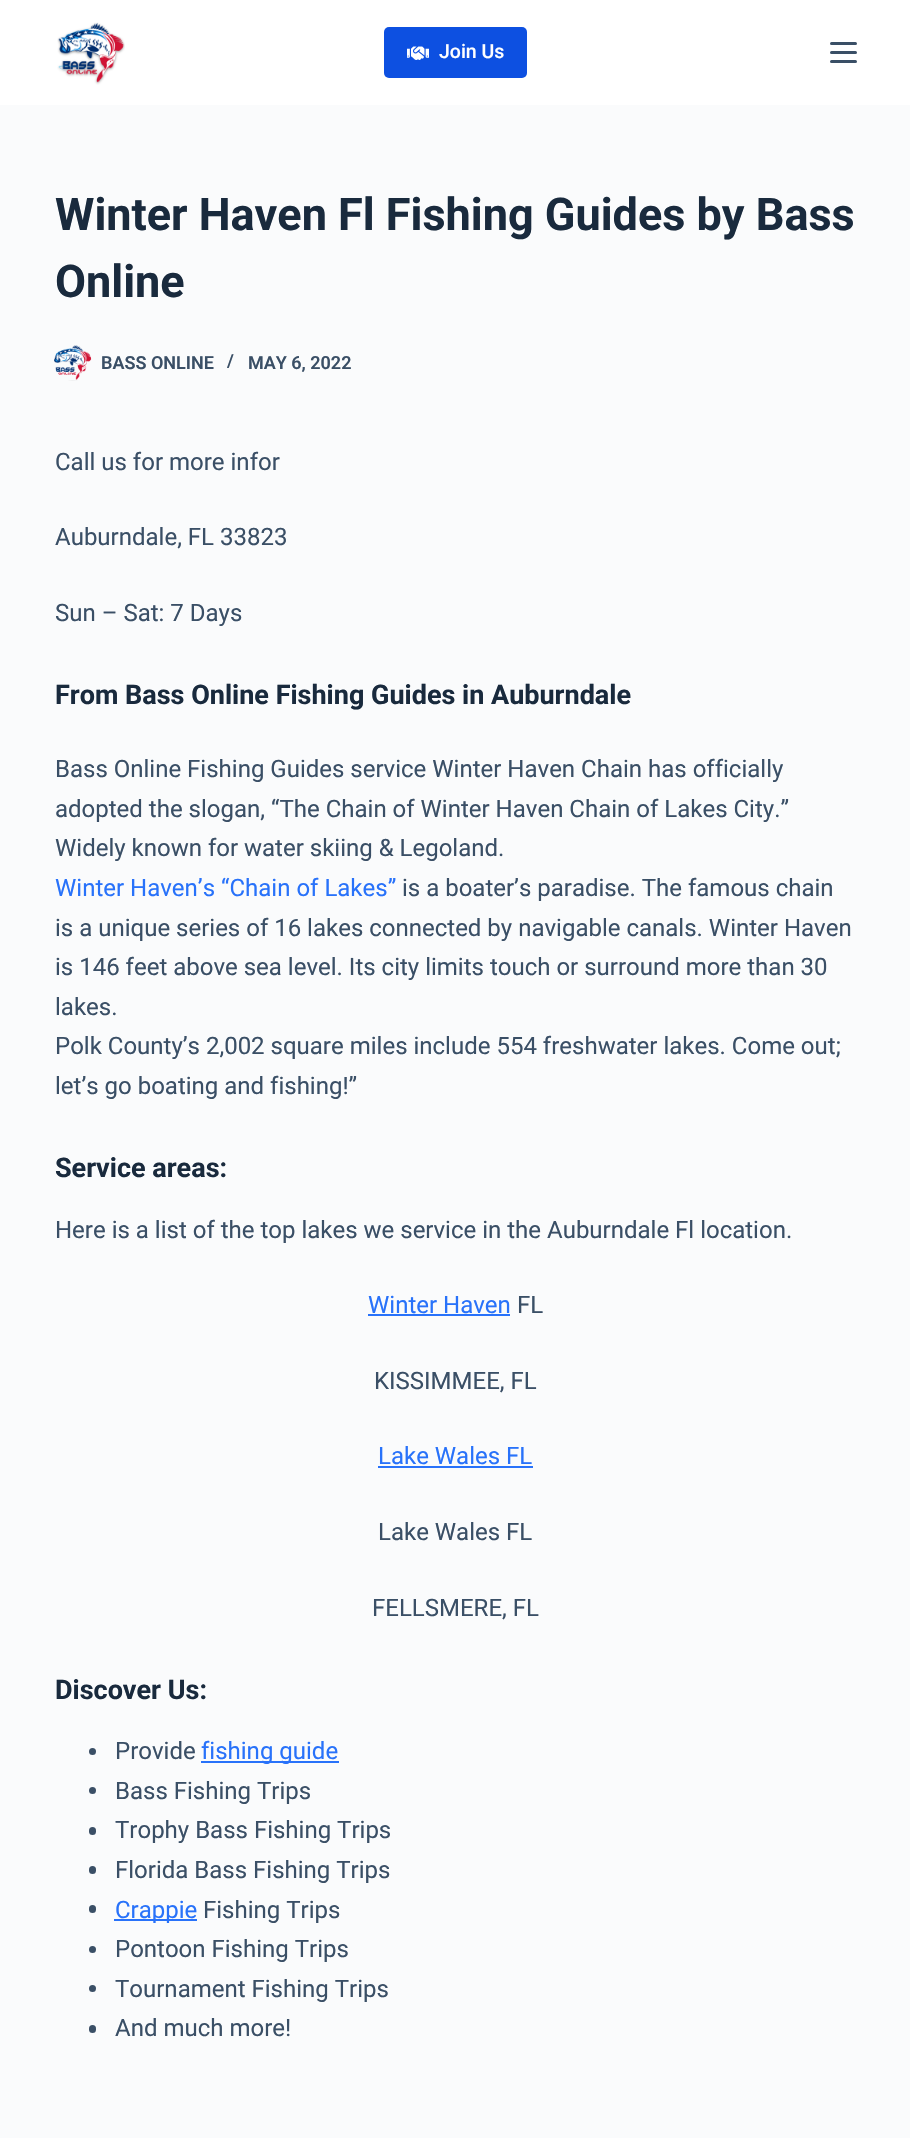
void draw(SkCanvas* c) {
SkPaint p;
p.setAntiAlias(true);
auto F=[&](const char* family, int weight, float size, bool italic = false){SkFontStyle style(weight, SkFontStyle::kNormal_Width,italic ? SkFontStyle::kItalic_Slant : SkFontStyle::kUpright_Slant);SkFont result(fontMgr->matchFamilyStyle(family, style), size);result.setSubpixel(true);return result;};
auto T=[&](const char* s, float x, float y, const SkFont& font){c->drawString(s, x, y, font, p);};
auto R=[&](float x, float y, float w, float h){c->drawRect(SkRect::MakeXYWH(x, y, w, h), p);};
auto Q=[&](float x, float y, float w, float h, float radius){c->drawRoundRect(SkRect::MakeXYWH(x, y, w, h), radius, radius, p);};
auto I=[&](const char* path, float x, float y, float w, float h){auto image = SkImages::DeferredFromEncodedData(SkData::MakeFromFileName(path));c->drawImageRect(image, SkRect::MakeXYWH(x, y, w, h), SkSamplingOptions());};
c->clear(0xfffafbfc);
p.setColor(0xffffffff);
R(0,0,910,105);
I("1.png",57,22,68,63);
p.setColor(0xff0d50e1);
Q(384,27,143,51,5);
I("2.png",407,46,22,14);
auto f1 = F("Roboto",500,19.5);
p.setColor(0xffffffff);
T("Join Us",439,58,f1);
p.setColor(0xff3a4f66);
Q(830,42,27,3,1.5);
Q(830,51,27,3,1.5);
Q(830,60,27,3,1.5);
auto f2 = F("Roboto",700,45);
p.setColor(0xff192a3d);
T("Winter Haven Fl Fishing Guides by Bass",55,230,f2);
T("Online",55,297,f2);
I("3.png",54,345,38,36);
auto f3 = F("Roboto",600,18);
p.setColor(0xff3a4f66);
T("BASS ONLINE",101,369,f3);
T("/",227,367,f3);
T("MAY 6, 2022",248,369,f3);
auto f4 = F("Roboto",400,24);
T("Call us for more infor",55,470,f4);
T("Auburndale, FL 33823",55,545,f4);
T("Sun – Sat: 7 Days",55,621,f4);
auto f5 = F("Roboto",700,27);
p.setColor(0xff192a3d);
T("From Bass Online Fishing Guides in Auburndale",55,704,f5);
p.setColor(0xff3a4f66);
T("Bass Online Fishing Guides service Winter Haven Chain has officially",55,777,f4);
T("adopted the slogan, “The Chain of Winter Haven Chain of Lakes City.”",55,817,f4);
T("Widely known for water skiing & Legoland.",55,856,f4);
p.setColor(0xff2872fa);
T("Winter Haven’s “Chain of Lakes”",55,896,f4);
p.setColor(0xff3a4f66);
T("is a boater’s paradise. The famous chain",402,896,f4);
T("is a unique series of 16 lakes connected by navigable canals. Winter Haven",55,936,f4);
T("is 146 feet above sea level. Its city limits touch or surround more than 30",55,975,f4);
T("lakes.",55,1015,f4);
T("Polk County’s 2,002 square miles include 554 freshwater lakes. Come out;",55,1054,f4);
T("let’s go boating and fishing!”",55,1094,f4);
p.setColor(0xff192a3d);
T("Service areas:",55,1177,f5);
p.setColor(0xff3a4f66);
T("Here is a list of the top lakes we service in the Auburndale Fl location.",55,1238,f4);
p.setColor(0xff2872fa);
T("Winter Haven",368,1313,f4);
R(368,1314,142,2);
p.setColor(0xff3a4f66);
T("FL",517,1313,f4);
T("KISSIMMEE, FL",374,1389,f4);
p.setColor(0xff2872fa);
T("Lake Wales FL",378,1464,f4);
R(378,1466,155,2);
p.setColor(0xff3a4f66);
T("Lake Wales FL",378,1540,f4);
T("FELLSMERE, FL",372,1616,f4);
p.setColor(0xff192a3d);
T("Discover Us:",55,1699,f5);
p.setColor(0xff3a4f66);
c->drawCircle(92.5,1751.5,3.5,p);
T("Provide",115,1759,f4);
p.setColor(0xff2872fa);
R(201,1761,138,2);
T("fishing guide",201,1759,f4);
p.setColor(0xff3a4f66);
c->drawCircle(92.5,1790.5,3.5,p);
T("Bass Fishing Trips",115,1799,f4);
Q(89,1827,7,8,3.5);
T("Trophy Bass Fishing Trips",115,1838,f4);
Q(89,1866,7,8,3.5);
T("Florida Bass Fishing Trips",115,1878,f4);
Q(89,1905,7,8,3.5);
p.setColor(0xff2872fa);
R(114,1919,83,2);
T("Crappie",115,1918,f4);
p.setColor(0xff3a4f66);
T("Fishing Trips",203,1918,f4);
c->drawCircle(92.5,1949.5,3.5,p);
T("Pontoon Fishing Trips",115,1957,f4);
c->drawCircle(92.5,1988.5,3.5,p);
T("Tournament Fishing Trips",115,1997,f4);
Q(89,2025,7,8,3.5);
T("And much more!",115,2036,f4);
}
